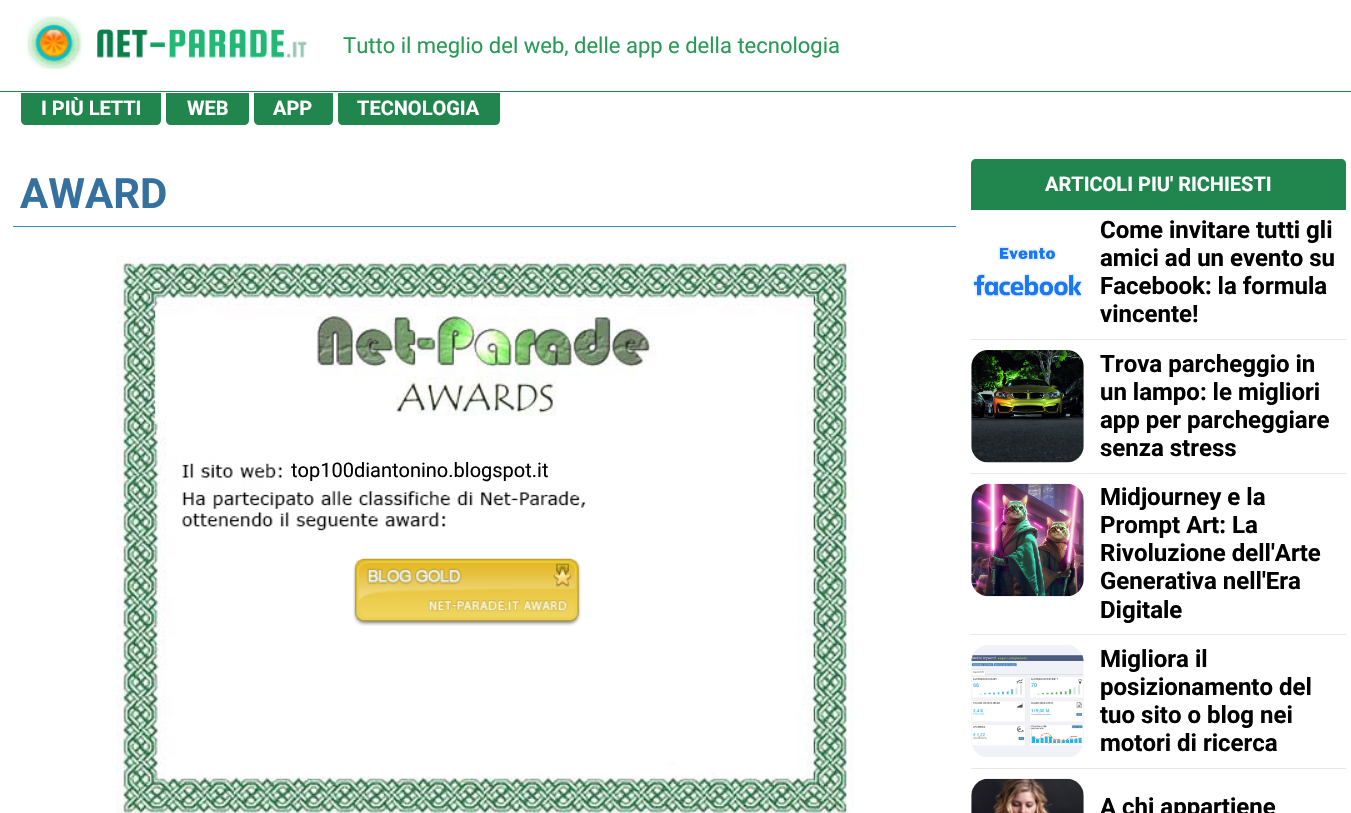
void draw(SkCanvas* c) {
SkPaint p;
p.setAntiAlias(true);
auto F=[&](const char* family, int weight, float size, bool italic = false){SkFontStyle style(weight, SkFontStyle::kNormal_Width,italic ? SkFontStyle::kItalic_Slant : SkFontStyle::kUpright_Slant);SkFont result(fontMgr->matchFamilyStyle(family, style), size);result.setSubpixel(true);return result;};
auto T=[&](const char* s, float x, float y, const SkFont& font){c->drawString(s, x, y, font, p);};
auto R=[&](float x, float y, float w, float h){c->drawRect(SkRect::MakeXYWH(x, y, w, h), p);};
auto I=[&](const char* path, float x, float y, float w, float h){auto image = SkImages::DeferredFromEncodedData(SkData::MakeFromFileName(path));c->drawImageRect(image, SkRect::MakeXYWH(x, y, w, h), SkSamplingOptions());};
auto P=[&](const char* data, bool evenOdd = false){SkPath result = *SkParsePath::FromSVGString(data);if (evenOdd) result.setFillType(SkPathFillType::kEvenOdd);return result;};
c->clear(0xffffffff);
I("1.png",27,16,55,53);
I("2.png",97,29,210,29);
auto f1 = F("Roboto",400,22);
p.setColor(0xff299a55);
T("Tutto il meglio del web, delle app e della tecnologia",343,53,f1);
p.setColor(0xff21894f);
R(0,91,1351,1);
p.setColor(0xff20864e);
c->drawPath(P("M21 93h140v27c0 3-2 5-5 5h-130c-3 0-5-2-5-5z"),p);
auto f2 = F("Roboto",700,20);
p.setColor(0xffffffff);
T("I PIÙ LETTI",41,115,f2);
p.setColor(0xff20864e);
c->drawPath(P("M166 93h83v27c0 3-2 5-5 5h-73c-3 0-5-2-5-5z"),p);
p.setColor(0xffffffff);
T("WEB",187,115,f2);
p.setColor(0xff20864e);
c->drawPath(P("M254 93h79v27c0 3-2 5-5 5h-69c-3 0-5-2-5-5z"),p);
p.setColor(0xffffffff);
T("APP",273,115,f2);
p.setColor(0xff20864e);
c->drawPath(P("M338 93h162v27c0 3-2 5-5 5h-152c-3 0-5-2-5-5z"),p);
p.setColor(0xffffffff);
T("TECNOLOGIA",357,115,f2);
p.setColor(0xff2f8cbe);
R(13,226,943,1);
auto f3 = F("Roboto",700,42);
p.setColor(0xff35719e);
T("AWARD",20,208,f3);
I("3.png",116,256,738,557);
auto f4 = F("Roboto",400,20);
p.setColor(0xff000000);
T("top100diantonino.blogspot.it",291,477,f4);
I("4.png",353,558,228,68);
p.setColor(0xff20864e);
c->drawPath(P("M976 159h365c3 0 5 2 5 5v46h-375v-46c0-3 2-5 5-5z"),p);
p.setColor(0xffffffff);
T("ARTICOLI PIU' RICHIESTI",1045,191,f2);
I("5.png",972,246,111,51);
auto f5 = F("Roboto",700,24);
p.setColor(0xff000000);
T("Come invitare tutti gli",1100,238,f5);
T("amici ad un evento su",1100,266,f5);
T("Facebook: la formula",1100,294,f5);
T("vincente!",1100,322,f5);
p.setColor(0xffe6e6e6);
R(971,339,375,1);
I("6.png",971,350,113,113);
p.setColor(0xff000000);
T("Trova parcheggio in",1100,372,f5);
T("un lampo: le migliori",1100,400,f5);
T("app per parcheggiare",1100,428,f5);
T("senza stress",1100,456,f5);
p.setColor(0xffe6e6e6);
R(971,473,375,1);
I("7.png",971,483,113,114);
p.setColor(0xff000000);
T("Midjourney e la",1100,505,f5);
T("Prompt Art: La",1100,533,f5);
T("Rivoluzione dell'Arte",1100,561,f5);
T("Generativa nell'Era",1100,589,f5);
T("Digitale",1100,618,f5);
p.setColor(0xffe6e6e6);
R(971,634,375,1);
I("8.png",971,645,113,112);
p.setColor(0xff000000);
T("Migliora il",1100,667,f5);
T("posizionamento del",1100,695,f5);
T("tuo sito o blog nei",1100,723,f5);
T("motori di ricerca",1100,751,f5);
p.setColor(0xffe6e6e6);
R(971,768,375,1);
I("9.png",971,778,113,35);
p.setColor(0xff000000);
T("A chi appartiene",1100,815,f5);
}
